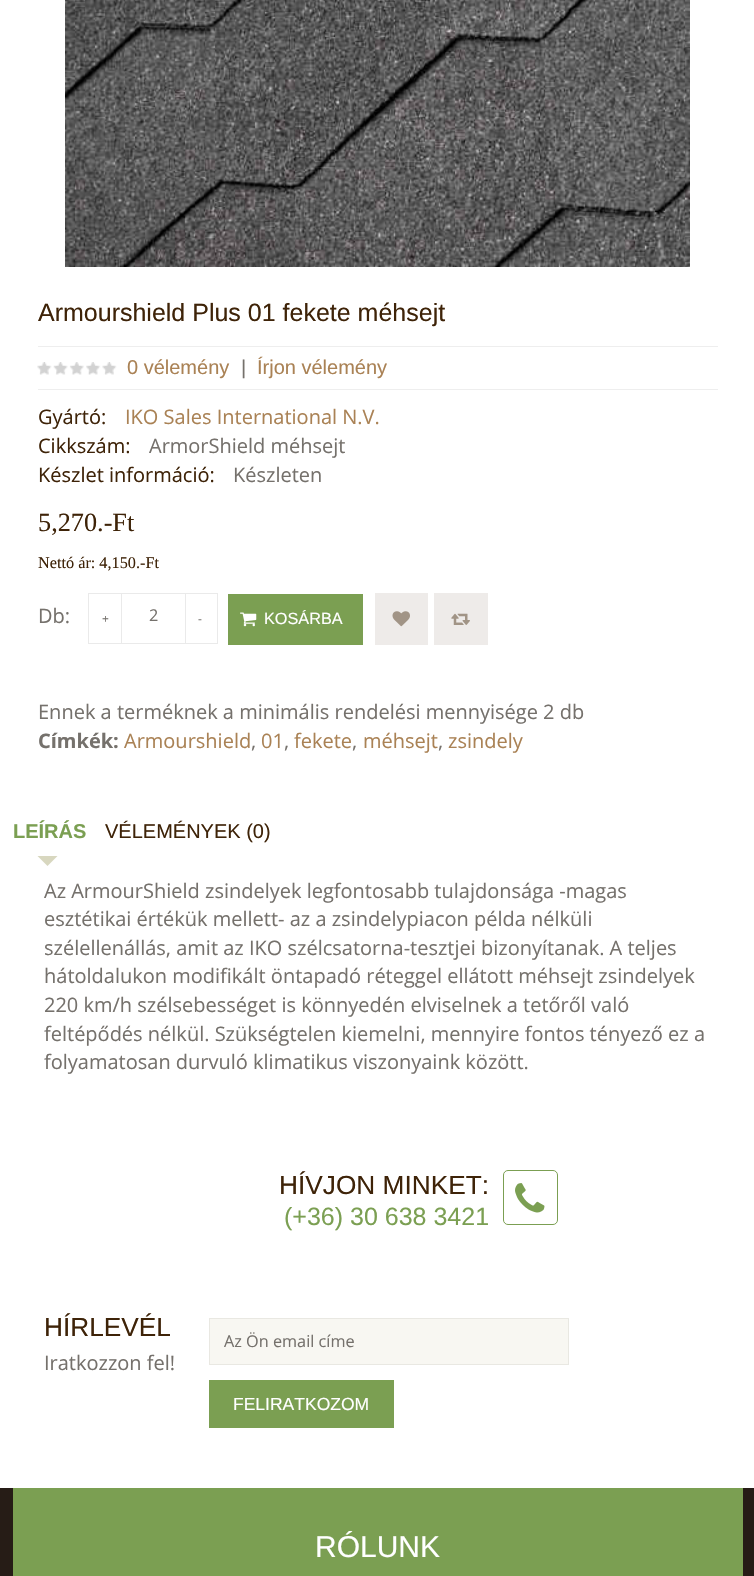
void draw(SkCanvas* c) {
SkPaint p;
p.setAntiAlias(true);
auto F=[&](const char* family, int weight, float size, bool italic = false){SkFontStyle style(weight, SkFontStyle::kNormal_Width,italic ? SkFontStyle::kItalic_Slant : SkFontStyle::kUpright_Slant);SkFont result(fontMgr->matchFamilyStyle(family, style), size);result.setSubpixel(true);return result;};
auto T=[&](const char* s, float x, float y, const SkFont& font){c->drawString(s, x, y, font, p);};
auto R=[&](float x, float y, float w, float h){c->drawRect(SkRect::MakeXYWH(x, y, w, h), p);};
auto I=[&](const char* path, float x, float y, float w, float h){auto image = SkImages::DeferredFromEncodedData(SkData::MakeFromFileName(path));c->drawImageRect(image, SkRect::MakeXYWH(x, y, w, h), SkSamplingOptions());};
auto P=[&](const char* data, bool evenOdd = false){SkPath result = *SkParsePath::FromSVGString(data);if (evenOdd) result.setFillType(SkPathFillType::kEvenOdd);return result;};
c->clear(0xffffffff);
I("1.png",65,0,625,267);
auto f1 = F("Liberation Sans",400,25);
p.setColor(0xff3e2308);
T("Armourshield Plus 01 fekete méhsejt",38,321,f1);
p.setColor(0xffeeeeee);
R(38,346,680,1);
R(38,389,680,1);
I("2.png",37,362,80,13);
auto f2 = F("Liberation Sans",400,20);
p.setColor(0xffaa8255);
T("0 vélemény",127,374,f2);
p.setColor(0xff75716c);
T("|",241,374,f2);
p.setColor(0xffaa8255);
T("Írjon vélemény",257,374,f2);
auto f3 = F("Open Sans",400,20);
p.setColor(0xff3e2308);
T("Gyártó:",38,424,f3);
p.setColor(0xffaa8255);
T("IKO Sales International N.V.",125,424,f3);
p.setColor(0xff3e2308);
T("Cikkszám:",38,453,f3);
p.setColor(0xff75716c);
T("ArmorShield méhsejt",149,453,f3);
p.setColor(0xff3e2308);
T("Készlet információ:",38,482,f3);
p.setColor(0xff75716c);
T("Készleten",233,482,f3);
auto f4 = F("Liberation Serif",400,26.25);
p.setColor(0xff3e2308);
T("5,270.-Ft",38,531,f4);
auto f5 = F("Liberation Serif",400,16.25);
T("Nettó ár: 4,150.-Ft",38,568,f5);
p.setColor(0xff75716c);
T("Db:",38,623,f3);
p.setStroke(true);
p.setStrokeWidth(1);
p.setColor(0xffeaeaea);
c->drawRect(SkRect::MakeXYWH(88.5,593.5,129,50),p);
auto f6 = F("Open Sans",400,12);
p.setStroke(false);
p.setColor(0xff75716c);
T("+",102,623,f6);
p.setColor(0xffeaeaea);
R(121,594,1,49);
auto f7 = F("Open Sans",400,16.25);
p.setColor(0xff75716c);
T("2",149,621,f7);
T("-",198,623,f6);
p.setColor(0xffeaeaea);
R(185,594,1,49);
p.setColor(0xff7b9f52);
R(228,594,135,51);
I("3.png",240,612,17,15);
auto f8 = F("Liberation Sans",400,16.25);
p.setColor(0xffffffff);
T("KOSÁRBA",264,624,f8);
p.setColor(0xffeeebe9);
R(375,593,53,52);
I("4.png",392,611,18,16);
R(434,593,54,52);
I("5.png",451,613,19,12);
p.setColor(0xff75716c);
T("Ennek a terméknek a minimális rendelési mennyisége 2 db",38,719,f3);
auto f9 = F("Open Sans",700,20);
T("Címkék:",38,748,f9);
p.setColor(0xffaa8255);
T("Armourshield",124,748,f3);
p.setColor(0xff75716c);
T(",",251,748,f3);
p.setColor(0xffaa8255);
T("01",261,748,f3);
p.setColor(0xff75716c);
T(",",284,748,f3);
p.setColor(0xffaa8255);
T("fekete",294,748,f3);
p.setColor(0xff75716c);
T(",",352,748,f3);
p.setColor(0xffaa8255);
T("méhsejt",363,748,f3);
p.setColor(0xff75716c);
T(",",438,748,f3);
p.setColor(0xffaa8255);
T("zsindely",448,748,f3);
auto f10 = F("Liberation Sans",700,20);
p.setColor(0xff7b9f52);
T("LEÍRÁS",13,838,f10);
p.setColor(0xffd8d7bf);
c->drawPath(P("M37.5 856h20l-10 10z"),p);
p.setColor(0xff3e2308);
T("VÉLEMÉNYEK (0)",105,838,f2);
p.setColor(0xff75716c);
T("Az ArmourShield zsindelyek legfontosabb tulajdonsága -magas",44,898,f3);
T("esztétikai értékük mellett- az a zsindelypiacon példa nélküli",44,926,f3);
T("szélellenállás, amit az IKO szélcsatorna-tesztjei bizonyítanak. A teljes",44,955,f3);
T("hátoldalukon modifikált öntapadó réteggel ellátott méhsejt zsindelyek",44,983,f3);
T("220 km/h szélsebességet is könnyedén elviselnek a tetőről való",44,1012,f3);
T("feltépődés nélkül. Szükségtelen kiemelni, mennyire fontos tényező ez a",44,1041,f3);
T("folyamatosan durvuló klimatikus viszonyaink között.",44,1069,f3);
auto f11 = F("Liberation Sans",400,26.25);
p.setColor(0xff3e2308);
T("HÍVJON MINKET:",279,1194,f11);
p.setColor(0xff7b9f52);
T("(+36) 30 638 3421",284,1225,f1);
p.setStroke(true);
c->drawRoundRect(SkRect::MakeXYWH(503.5,1170.5,54,54),4.5,4.5,p);
I("6.png",515,1183,30,30);
p.setStroke(false);
p.setColor(0xff3e2308);
T("HÍRLEVÉL",44,1336,f11);
p.setColor(0xff75716c);
T("Iratkozzon fel!",44,1370,f3);
p.setColor(0xfff8f7f2);
c->drawRect(SkRect::MakeXYWH(209.5,1318.5,359,46),p);
p.setStroke(true);
p.setColor(0xffe9e8e2);
c->drawRect(SkRect::MakeXYWH(209.5,1318.5,359,46),p);
p.setStroke(false);
p.setColor(0xff75716c);
T("Az Ön email címe",224,1347,f7);
p.setColor(0xff7b9f52);
R(209,1380,185,48);
auto f12 = F("Liberation Sans",400,17.5);
p.setColor(0xffffffff);
T("FELIRATKOZOM",233,1410,f12);
p.setColor(0xff261c16);
R(0,1488,754,88);
p.setColor(0xff7b9f52);
R(13,1488,730,88);
auto f13 = F("Liberation Sans",400,30);
p.setColor(0xffffffff);
T("RÓLUNK",315,1557,f13);
}
